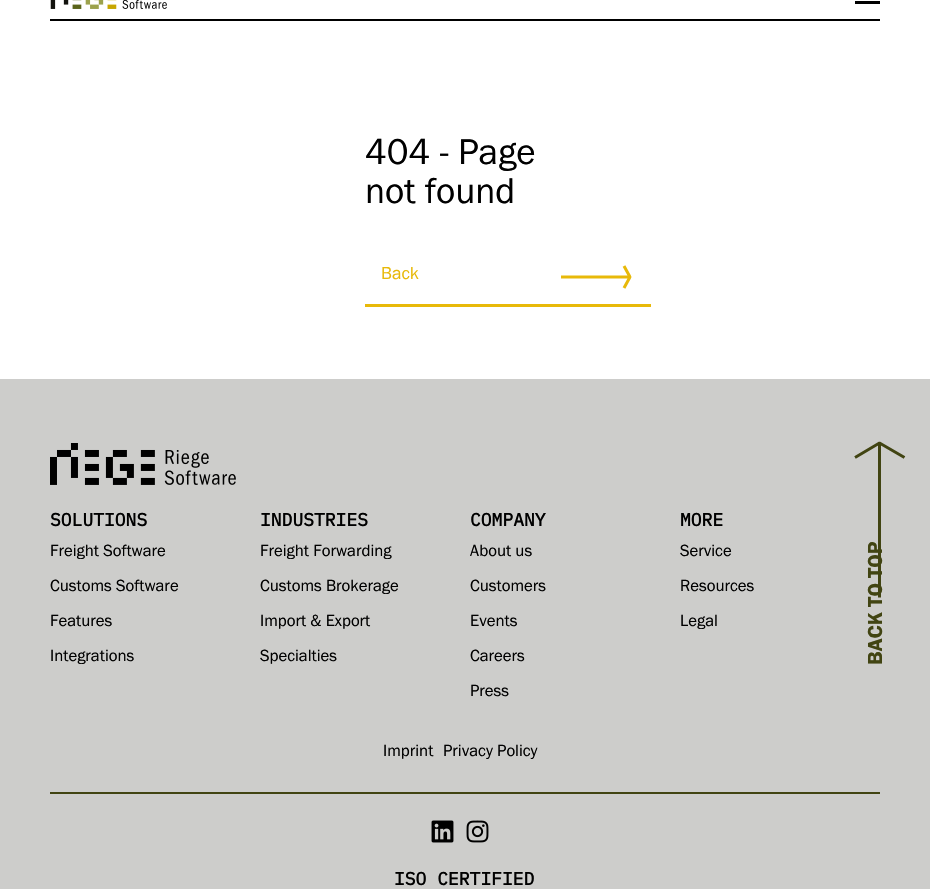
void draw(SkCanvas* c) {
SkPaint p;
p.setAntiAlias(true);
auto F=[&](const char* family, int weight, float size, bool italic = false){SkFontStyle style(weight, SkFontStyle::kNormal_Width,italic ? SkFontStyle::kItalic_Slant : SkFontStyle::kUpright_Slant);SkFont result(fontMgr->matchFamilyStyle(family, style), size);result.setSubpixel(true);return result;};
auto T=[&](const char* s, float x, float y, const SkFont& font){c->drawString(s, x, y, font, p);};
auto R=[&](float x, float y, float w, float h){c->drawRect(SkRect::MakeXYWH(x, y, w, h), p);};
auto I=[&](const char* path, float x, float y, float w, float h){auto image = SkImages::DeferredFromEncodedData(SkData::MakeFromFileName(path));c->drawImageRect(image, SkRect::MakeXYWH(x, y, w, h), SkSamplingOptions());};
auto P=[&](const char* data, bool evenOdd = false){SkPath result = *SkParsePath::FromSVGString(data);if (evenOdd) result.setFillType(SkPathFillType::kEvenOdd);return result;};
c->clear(0xffffffff);
I("1.png",50,0,117,9);
p.setColor(0xff000000);
R(855,1,25,3);
R(50,19,830,2);
auto f1 = F("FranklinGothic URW",400,37);
T("404 - Page",365,164,f1);
T("not found",365,203,f1);
auto f2 = F("FranklinGothic URW",400,18);
p.setColor(0xffe8b909);
T("Back",381,279,f2);
p.setStroke(true);
p.setStrokeWidth(3);
p.setStrokeJoin(SkPaint::kBevel_Join);
c->drawPath(P("M561 277h69m-6-11l6 11l-6 11"),p);
p.setStroke(false);
R(365,304,286,3);
p.setColor(0xffcdcdcb);
R(0,379,930,510);
I("2.png",50,443,186,42);
auto f3 = F("IBM Plex Mono",700,18);
p.setColor(0xff000000);
T("SOLUTIONS",50,526,f3);
auto f4 = F("FranklinGothic URW",400,16.75);
T("Freight Software",50,556,f4);
T("Customs Software",50,591,f4);
T("Features",50,626,f4);
T("Integrations",50,661,f4);
T("INDUSTRIES",260,526,f3);
T("Freight Forwarding",260,556,f4);
T("Customs Brokerage",260,591,f4);
T("Import & Export",260,626,f4);
T("Specialties",260,661,f4);
T("COMPANY",470,526,f3);
T("About us",470,556,f4);
T("Customers",470,591,f4);
T("Events",470,626,f4);
T("Careers",470,661,f4);
T("Press",470,696,f4);
T("MORE",680,526,f3);
T("Service",680,556,f4);
T("Resources",680,591,f4);
T("Legal",680,626,f4);
T("Imprint",383,756,f4);
T("Privacy Policy",443,756,f4);
p.setColor(0xff414412);
R(50,792,830,2);
I("3.png",431,820,23,23);
I("4.png",466,820,23,23);
p.setColor(0xff000000);
T("ISO CERTIFIED",394,885,f3);
c->save();
c->clipPath(P("M853 597.5v-158.5h53v158.5z"),true);
p.setStroke(true);
p.setColor(0xff414412);
c->drawPath(P("M879.5 598v-155m-24.5 14.5l24.5-14.5l25 14.5"),p);
c->restore();
auto f5 = F("FranklinGothic URW",600,21);
p.setStroke(false);
c->save();
c->rotate(-90,882,665);
T("BACK TO TOP",882,665,f5);
c->restore();
}
